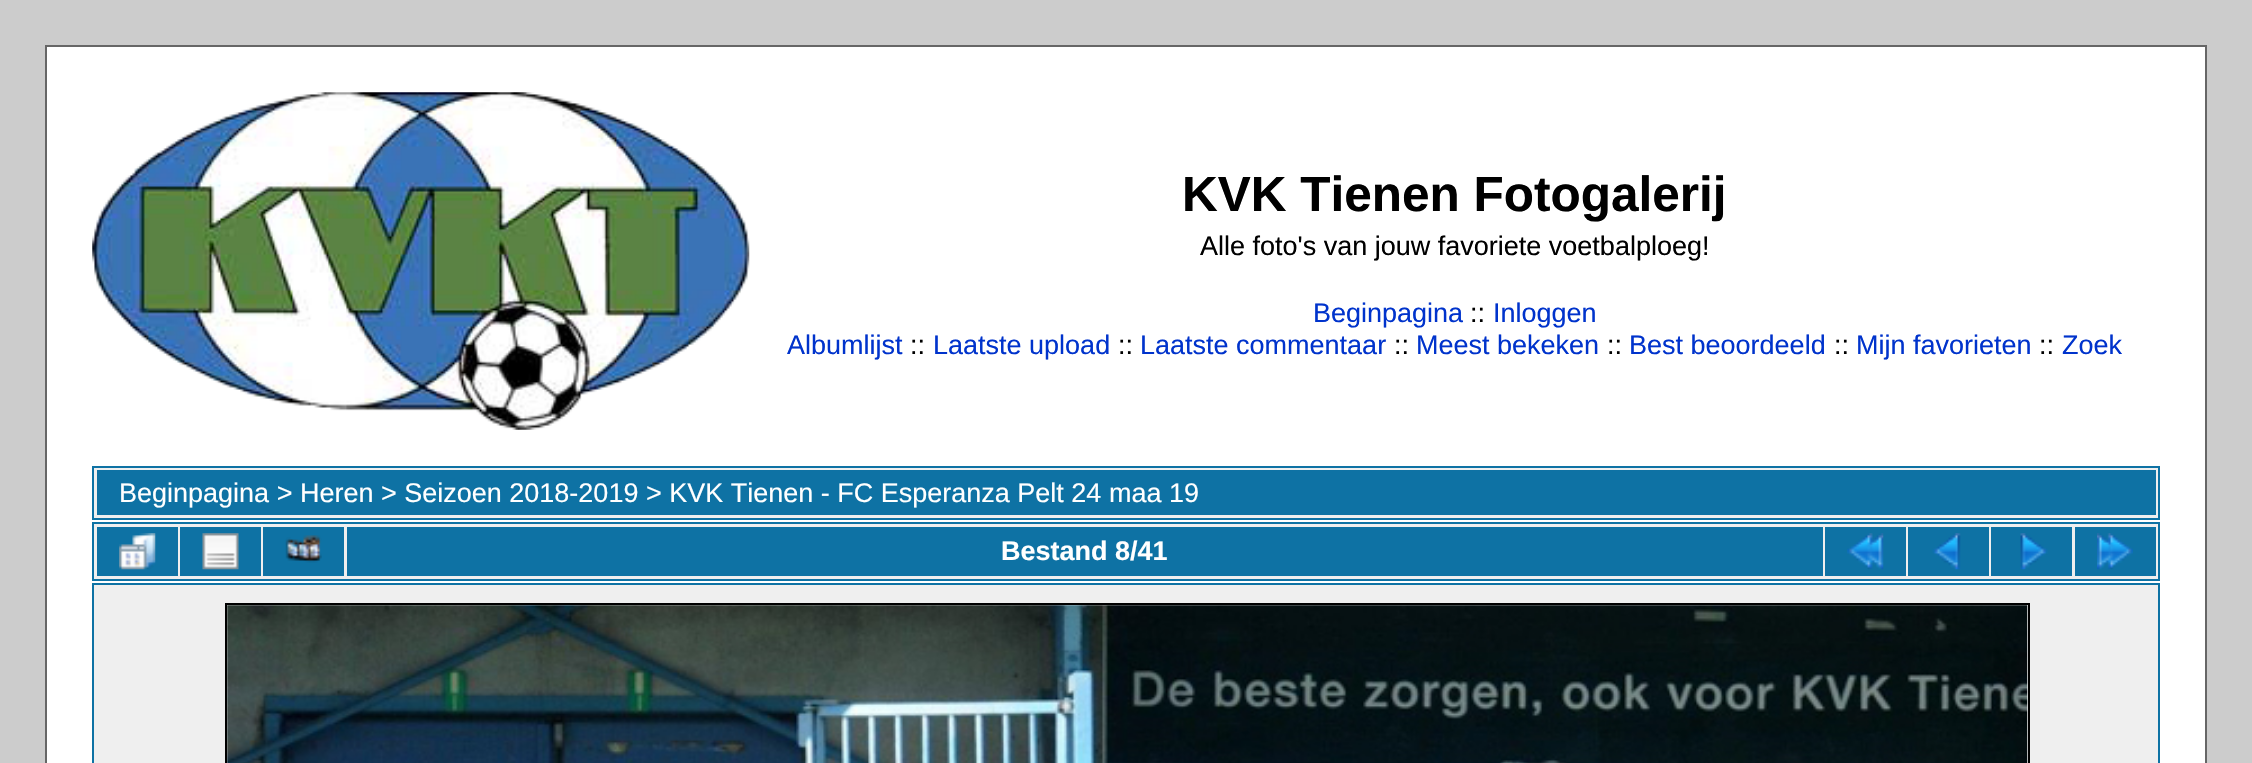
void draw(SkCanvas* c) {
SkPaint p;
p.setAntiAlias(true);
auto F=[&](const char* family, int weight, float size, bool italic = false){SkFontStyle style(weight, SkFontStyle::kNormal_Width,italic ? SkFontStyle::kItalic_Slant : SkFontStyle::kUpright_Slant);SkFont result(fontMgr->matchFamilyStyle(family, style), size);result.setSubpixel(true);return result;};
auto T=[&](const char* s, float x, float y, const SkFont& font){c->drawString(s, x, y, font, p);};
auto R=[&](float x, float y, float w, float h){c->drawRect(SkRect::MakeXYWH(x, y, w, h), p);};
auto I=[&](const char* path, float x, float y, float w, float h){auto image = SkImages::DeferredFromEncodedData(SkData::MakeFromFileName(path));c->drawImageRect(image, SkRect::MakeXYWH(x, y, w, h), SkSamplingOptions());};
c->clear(0xffcccccc);
p.setColor(0xffffffff);
c->drawRect(SkRect::MakeXYWH(46,46,2160,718),p);
p.setStroke(true);
p.setStrokeWidth(2);
p.setColor(0xff666666);
c->drawRect(SkRect::MakeXYWH(46,46,2160,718),p);
I("1.png",92,92,658,338);
auto f1 = F("Liberation Sans",700,49.5);
p.setStroke(false);
p.setColor(0xff000000);
T("KVK Tienen Fotogalerij",1182,211,f1);
auto f2 = F("Liberation Sans",400,27);
T("Alle foto's van jouw favoriete voetbalploeg!",1200,255,f2);
p.setColor(0xff0033cc);
T("Beginpagina",1313,322,f2);
p.setColor(0xff000000);
T("::",1470,322,f2);
p.setColor(0xff0033cc);
T("Inloggen",1493,322,f2);
T("Albumlijst",787,354,f2);
p.setColor(0xff000000);
T("::",910,354,f2);
p.setColor(0xff0033cc);
T("Laatste upload",933,354,f2);
p.setColor(0xff000000);
T("::",1118,354,f2);
p.setColor(0xff0033cc);
T("Laatste commentaar",1140,354,f2);
p.setColor(0xff000000);
T("::",1394,354,f2);
p.setColor(0xff0033cc);
T("Meest bekeken",1416,354,f2);
p.setColor(0xff000000);
T("::",1607,354,f2);
p.setColor(0xff0033cc);
T("Best beoordeeld",1629,354,f2);
p.setColor(0xff000000);
T("::",1834,354,f2);
p.setColor(0xff0033cc);
T("Mijn favorieten",1856,354,f2);
p.setColor(0xff000000);
T("::",2039,354,f2);
p.setColor(0xff0033cc);
T("Zoek",2062,354,f2);
p.setColor(0xffefefef);
c->drawRect(SkRect::MakeXYWH(93,467,2066,52),p);
p.setStroke(true);
p.setColor(0xff0e72a4);
c->drawRect(SkRect::MakeXYWH(93,467,2066,52),p);
p.setStroke(false);
R(97,470,2059,45);
p.setColor(0xffffffff);
T("Beginpagina > Heren > Seizoen 2018-2019 > KVK Tienen - FC Esperanza Pelt 24 maa 19",119,502,f2);
p.setColor(0xffefefef);
c->drawRect(SkRect::MakeXYWH(93,523,2066,57),p);
p.setStroke(true);
p.setColor(0xff0e72a4);
c->drawRect(SkRect::MakeXYWH(93,523,2066,57),p);
p.setStroke(false);
R(97,527,81,49);
I("2.png",119,533,37,37);
R(180,527,81,49);
I("3.png",202,533,37,37);
R(263,527,81,49);
I("4.png",285,535,37,28);
R(347,527,1476,49);
auto f3 = F("Liberation Sans",700,27);
p.setColor(0xffffffff);
T("Bestand 8/41",1001,560,f3);
p.setColor(0xff0e72a4);
R(1825,527,81,49);
I("5.png",1847,533,37,37);
R(1908,527,81,49);
I("6.png",1932,533,29,37);
R(1991,527,81,49);
I("7.png",2020,533,28,37);
R(2075,527,81,49);
I("8.png",2097,533,36,37);
p.setColor(0xffefefef);
c->drawRect(SkRect::MakeXYWH(93,584,2066,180),p);
p.setStroke(true);
p.setColor(0xff0e72a4);
c->drawRect(SkRect::MakeXYWH(93,584,2066,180),p);
p.setColor(0xff000000);
c->drawRect(SkRect::MakeXYWH(226,604,1803,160),p);
I("9.png",227,605,1801,158);
}
